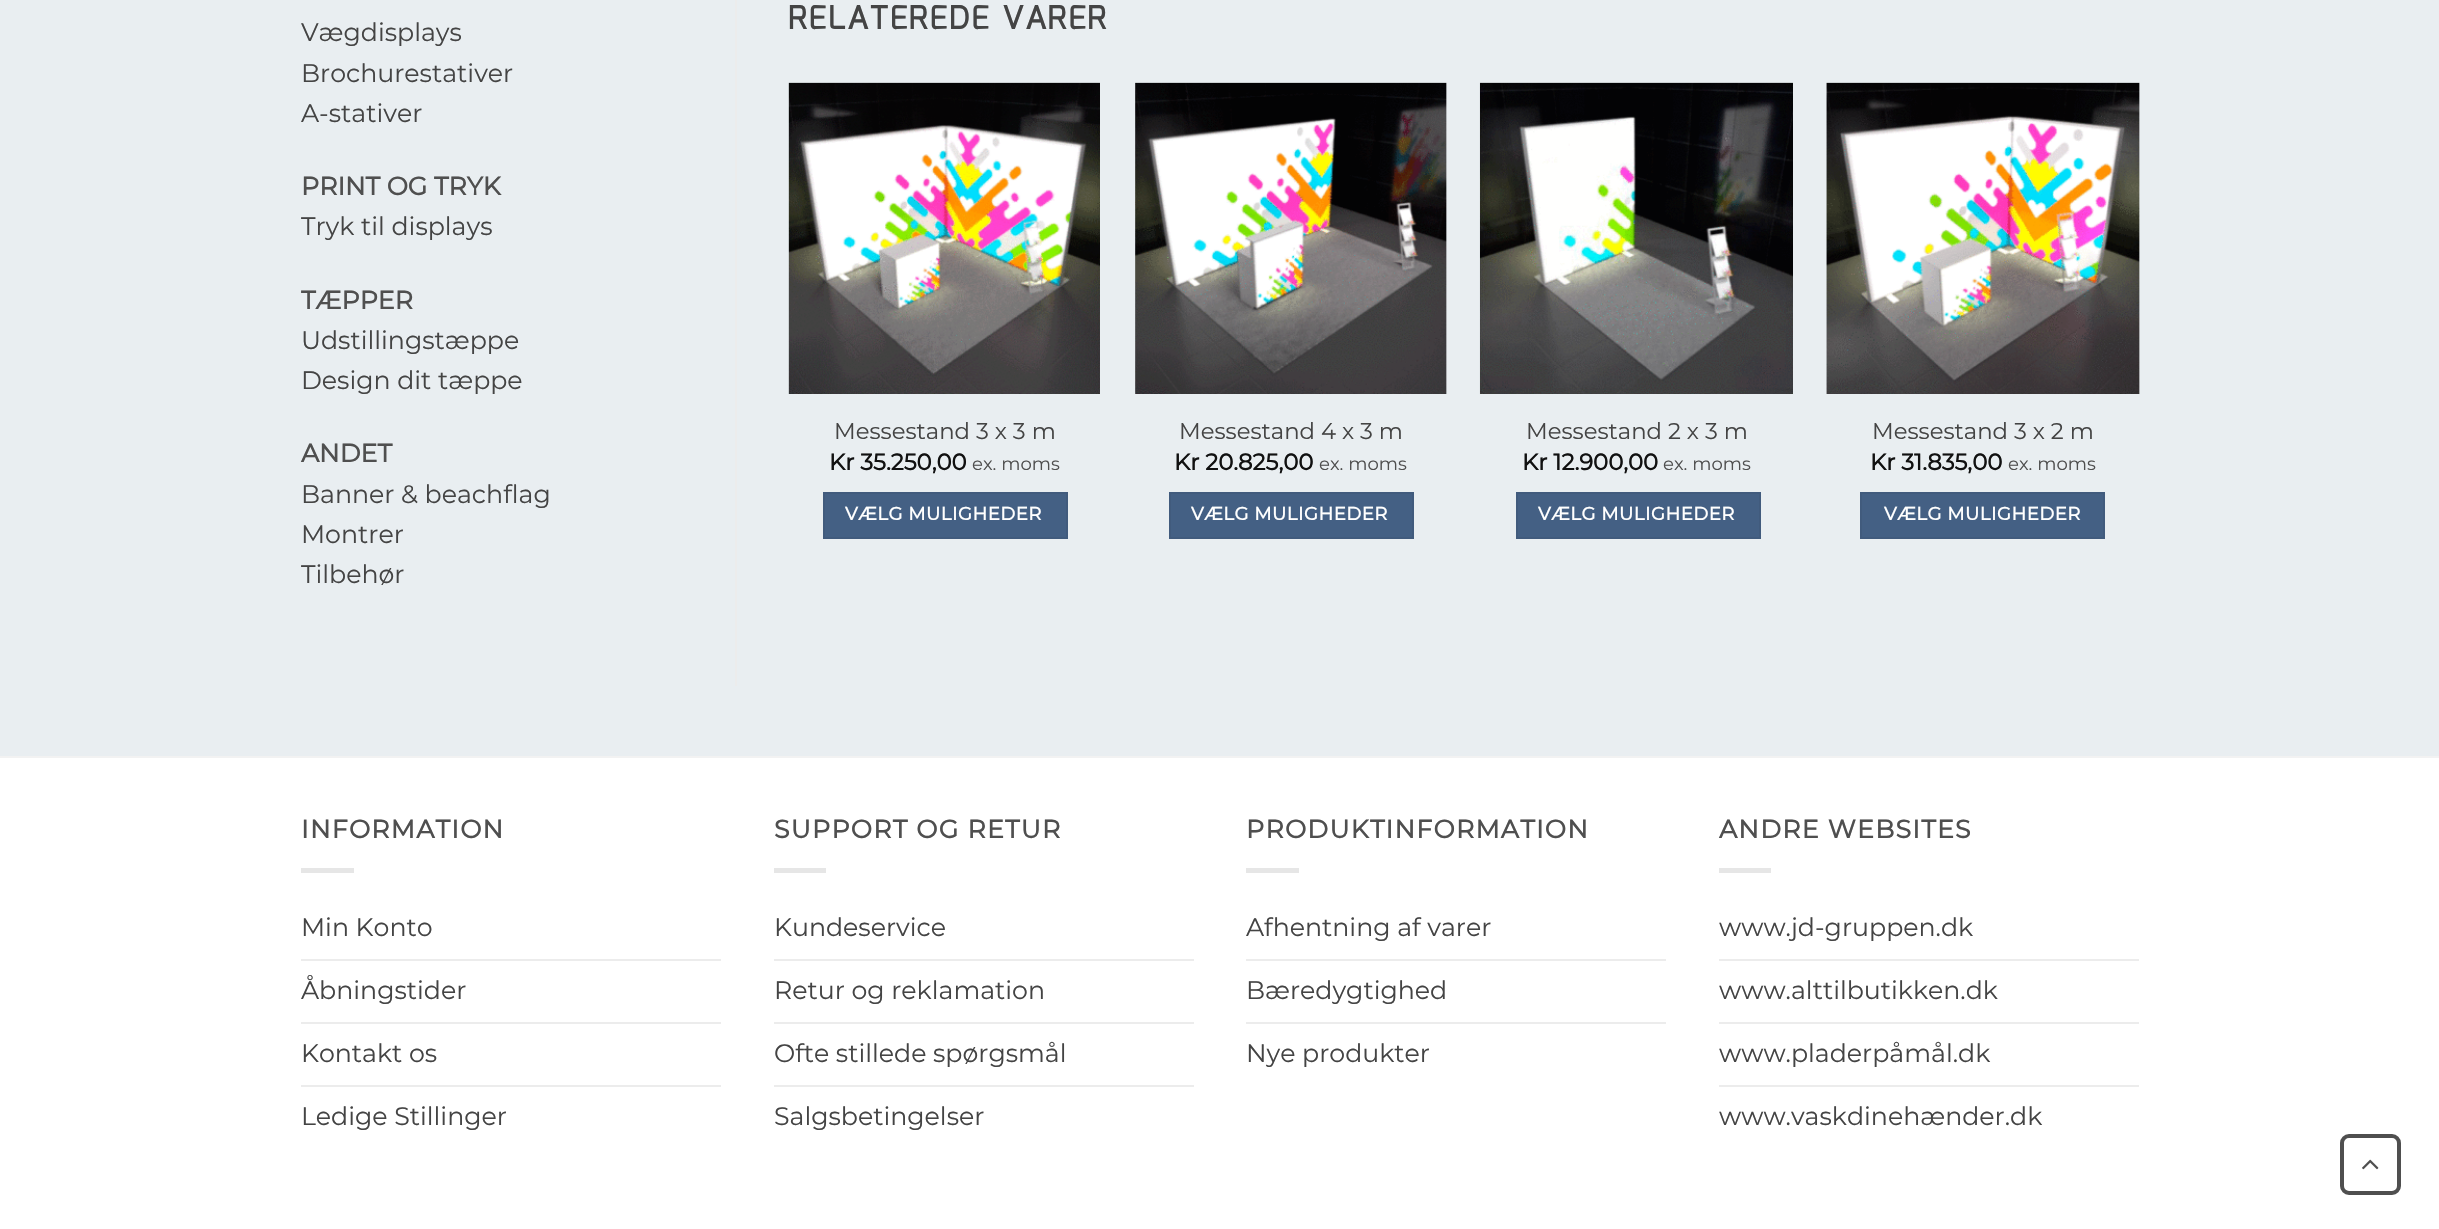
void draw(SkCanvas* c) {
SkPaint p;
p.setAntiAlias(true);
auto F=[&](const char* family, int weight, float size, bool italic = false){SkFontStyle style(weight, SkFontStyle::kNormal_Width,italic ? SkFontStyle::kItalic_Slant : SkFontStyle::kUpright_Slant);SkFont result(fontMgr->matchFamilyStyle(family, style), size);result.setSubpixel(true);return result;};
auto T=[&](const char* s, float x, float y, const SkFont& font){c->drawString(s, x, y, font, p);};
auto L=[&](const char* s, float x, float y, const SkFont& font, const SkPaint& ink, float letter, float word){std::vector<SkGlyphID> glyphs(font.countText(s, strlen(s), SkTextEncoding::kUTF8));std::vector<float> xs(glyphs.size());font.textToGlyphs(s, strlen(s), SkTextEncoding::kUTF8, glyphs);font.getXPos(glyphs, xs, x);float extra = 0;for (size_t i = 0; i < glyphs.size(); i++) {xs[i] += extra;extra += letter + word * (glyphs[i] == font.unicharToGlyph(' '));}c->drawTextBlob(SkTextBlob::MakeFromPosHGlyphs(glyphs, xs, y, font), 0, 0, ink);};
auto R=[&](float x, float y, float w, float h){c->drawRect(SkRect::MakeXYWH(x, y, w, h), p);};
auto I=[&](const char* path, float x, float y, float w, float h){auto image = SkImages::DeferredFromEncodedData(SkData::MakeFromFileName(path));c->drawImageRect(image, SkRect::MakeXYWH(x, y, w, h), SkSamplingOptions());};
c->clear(0xffe9eef1);
auto f1 = F("Montserrat",100,25.25);
p.setColor(0xff444444);
T("Vægdisplays",301,41,f1);
T("Brochurestativer",301,82,f1);
T("A-stativer",301,122,f1);
auto f2 = F("Montserrat",700,25.25);
p.setColor(0xff4f4f4f);
T("PRINT OG TRYK",301,195,f2);
p.setColor(0xff444444);
T("Tryk til displays",301,235,f1);
p.setColor(0xff4f4f4f);
T("TÆPPER",301,309,f2);
p.setColor(0xff444444);
T("Udstillingstæppe",301,349,f1);
T("Design dit tæppe",301,389,f1);
p.setColor(0xff4f4f4f);
T("ANDET",301,462,f2);
p.setColor(0xff444444);
T("Banner & beachflag",301,503,f1);
T("Montrer",301,543,f1);
T("Tilbehør",301,583,f1);
p.setColor(0xffececec);
R(735,0,2,686);
auto f3 = F("Mina",700,31.5);
p.setColor(0xff444444);
L("RELATEREDE VARER",788,29,f3,p,1.6,0);
I("1.png",788,82,312,312);
auto f4 = F("Montserrat",100,22.75);
T("Messestand 3 x 3 m",834,439,f4);
auto f5 = F("Montserrat",700,22.75);
p.setColor(0xff111111);
T("Kr 35.250,00",829,470,f5);
auto f6 = F("Montserrat",100,18.1);
p.setColor(0xff4f4f4f);
T("ex. moms",972,470,f6);
p.setColor(0xff446084);
c->drawRect(SkRect::MakeXYWH(824,493,243,45),p);
p.setStroke(true);
p.setStrokeWidth(2);
p.setColor(0xff415b7d);
c->drawRect(SkRect::MakeXYWH(824,493,243,45),p);
auto f7 = F("Montserrat",700,18.1);
p.setStroke(false);
p.setColor(0xffffffff);
L("VÆLG MULIGHEDER",845,520,f7,p,.5,0);
I("2.png",1135,82,312,312);
p.setColor(0xff444444);
T("Messestand 4 x 3 m",1179,439,f4);
p.setColor(0xff111111);
T("Kr 20.825,00",1174,470,f5);
p.setColor(0xff4f4f4f);
T("ex. moms",1319,470,f6);
p.setColor(0xff446084);
c->drawRect(SkRect::MakeXYWH(1170,493,243,45),p);
p.setStroke(true);
p.setColor(0xff415b7d);
c->drawRect(SkRect::MakeXYWH(1170,493,243,45),p);
p.setStroke(false);
p.setColor(0xffffffff);
L("VÆLG MULIGHEDER",1191,520,f7,p,.5,0);
I("3.png",1479,82,314,312);
p.setColor(0xff444444);
T("Messestand 2 x 3 m",1526,439,f4);
p.setColor(0xff111111);
T("Kr 12.900,00",1522,470,f5);
p.setColor(0xff4f4f4f);
T("ex. moms",1663,470,f6);
p.setColor(0xff446084);
c->drawRect(SkRect::MakeXYWH(1517,493,243,45),p);
p.setStroke(true);
p.setColor(0xff415b7d);
c->drawRect(SkRect::MakeXYWH(1517,493,243,45),p);
p.setStroke(false);
p.setColor(0xffffffff);
L("VÆLG MULIGHEDER",1538,520,f7,p,.5,0);
I("4.png",1826,82,314,312);
p.setColor(0xff444444);
T("Messestand 3 x 2 m",1872,439,f4);
p.setColor(0xff111111);
T("Kr 31.835,00",1870,470,f5);
p.setColor(0xff4f4f4f);
T("ex. moms",2008,470,f6);
p.setColor(0xff446084);
c->drawRect(SkRect::MakeXYWH(1861,493,243,45),p);
p.setStroke(true);
p.setColor(0xff415b7d);
c->drawRect(SkRect::MakeXYWH(1861,493,243,45),p);
p.setStroke(false);
p.setColor(0xffffffff);
L("VÆLG MULIGHEDER",1884,520,f7,p,.5,0);
R(0,758,2439,471);
p.setColor(0xfff2f2f2);
R(0,756,2439,2);
p.setColor(0xff4f4f4f);
L("INFORMATION",301,838,f2,p,1.25,0);
p.setColor(0xffe6e6e6);
R(301,868,53,5);
p.setColor(0xff444444);
T("Min Konto",301,936,f1);
p.setColor(0xffececec);
R(301,959,420,2);
p.setColor(0xff444444);
T("Åbningstider",301,999,f1);
p.setColor(0xffececec);
R(301,1022,420,2);
p.setColor(0xff444444);
T("Kontakt os",301,1062,f1);
p.setColor(0xffececec);
R(301,1085,420,2);
p.setColor(0xff444444);
T("Ledige Stillinger",301,1125,f1);
p.setColor(0xff4f4f4f);
L("SUPPORT OG RETUR",774,838,f2,p,1.25,0);
p.setColor(0xffe6e6e6);
R(774,868,52,5);
p.setColor(0xff444444);
T("Kundeservice",774,936,f1);
p.setColor(0xffececec);
R(774,959,420,2);
p.setColor(0xff444444);
T("Retur og reklamation",774,999,f1);
p.setColor(0xffececec);
R(774,1022,420,2);
p.setColor(0xff444444);
T("Ofte stillede spørgsmål",774,1062,f1);
p.setColor(0xffececec);
R(774,1085,420,2);
p.setColor(0xff444444);
T("Salgsbetingelser",774,1125,f1);
p.setColor(0xff4f4f4f);
L("PRODUKTINFORMATION",1246,838,f2,p,1.25,0);
p.setColor(0xffe6e6e6);
R(1246,868,53,5);
p.setColor(0xff444444);
T("Afhentning af varer",1246,936,f1);
p.setColor(0xffececec);
R(1246,959,420,2);
p.setColor(0xff444444);
T("Bæredygtighed",1246,999,f1);
p.setColor(0xffececec);
R(1246,1022,420,2);
p.setColor(0xff444444);
T("Nye produkter",1246,1062,f1);
p.setColor(0xff4f4f4f);
L("ANDRE WEBSITES",1719,838,f2,p,1.25,0);
p.setColor(0xffe6e6e6);
R(1719,868,52,5);
p.setColor(0xff444444);
T("www.jd-gruppen.dk",1719,936,f1);
p.setColor(0xffececec);
R(1719,959,420,2);
p.setColor(0xff444444);
T("www.alttilbutikken.dk",1719,999,f1);
p.setColor(0xffececec);
R(1719,1022,420,2);
p.setColor(0xff444444);
T("www.pladerpåmål.dk",1719,1062,f1);
p.setColor(0xffececec);
R(1719,1085,420,2);
p.setColor(0xff444444);
T("www.vaskdinehænder.dk",1719,1125,f1);
p.setStroke(true);
p.setStrokeWidth(4);
p.setColor(0xff4f4f4f);
c->drawRoundRect(SkRect::MakeXYWH(2342,1136,57,57),7,7,p);
I("5.png",2362,1159,17,11);
}
